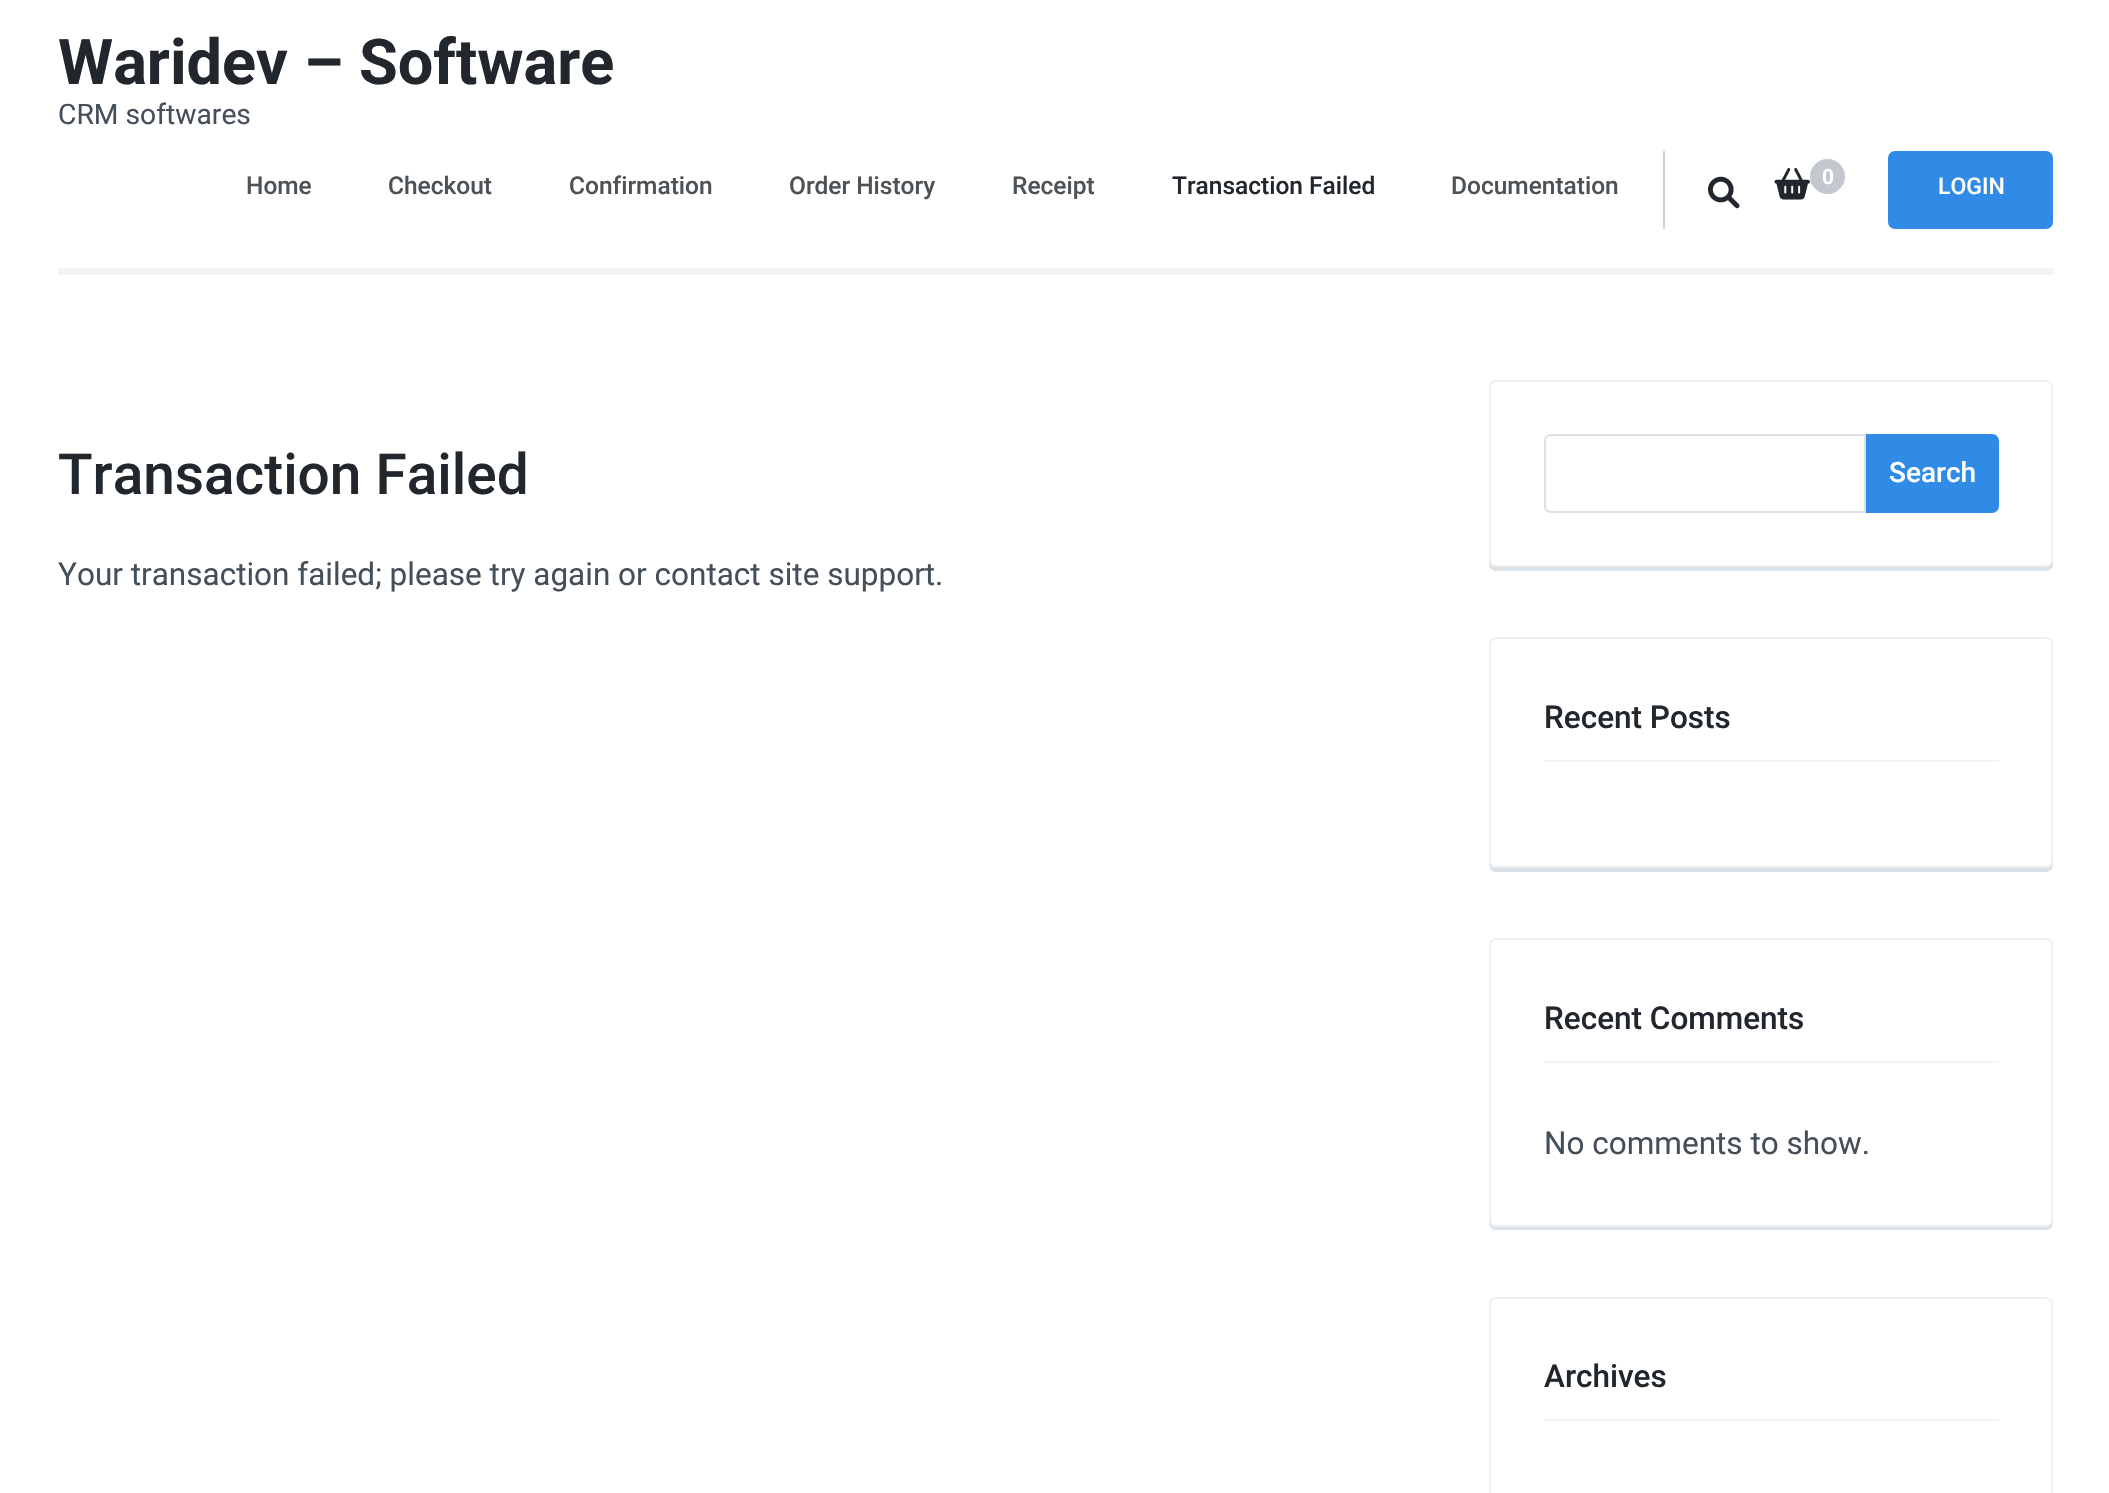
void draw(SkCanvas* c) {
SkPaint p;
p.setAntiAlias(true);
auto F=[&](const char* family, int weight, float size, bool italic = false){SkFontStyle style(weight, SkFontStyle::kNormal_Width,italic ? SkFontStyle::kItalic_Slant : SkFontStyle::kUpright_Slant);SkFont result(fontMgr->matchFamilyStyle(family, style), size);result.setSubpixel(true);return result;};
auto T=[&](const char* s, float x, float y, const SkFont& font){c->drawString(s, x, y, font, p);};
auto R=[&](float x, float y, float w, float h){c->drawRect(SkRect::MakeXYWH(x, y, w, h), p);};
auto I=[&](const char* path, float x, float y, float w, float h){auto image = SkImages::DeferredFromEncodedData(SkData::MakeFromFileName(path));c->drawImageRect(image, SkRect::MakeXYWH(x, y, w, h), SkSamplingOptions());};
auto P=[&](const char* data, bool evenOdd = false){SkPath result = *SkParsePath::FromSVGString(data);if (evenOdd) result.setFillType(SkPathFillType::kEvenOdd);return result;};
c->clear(0xffffffff);
p.setColor(0xfff4f4f4);
R(58,268,1995,7);
auto f1 = F("Roboto",700,63);
p.setColor(0xff21272c);
T("Waridev – Software",58,84,f1);
auto f2 = F("Roboto",400,28.25);
p.setColor(0xff454f59);
T("CRM softwares",58,124,f2);
auto f3 = F("Roboto",500,24.5);
p.setColor(0xff4d5256);
T("Home",246,194,f3);
T("Checkout",388,194,f3);
T("Confirmation",569,194,f3);
T("Order History",789,194,f3);
T("Receipt",1012,194,f3);
p.setColor(0xff21272c);
T("Transaction Failed",1172,194,f3);
p.setColor(0xff4d5256);
T("Documentation",1451,194,f3);
p.setColor(0xffd3d4d5);
R(1663,151,2,78);
I("1.png",1708,176,32,33);
I("2.png",1774,168,36,32);
p.setColor(0xffc2c8ce);
c->drawCircle(1827.5,176.5,17.5,p);
auto f4 = F("Roboto",700,21);
p.setColor(0xffffffff);
T("0",1822,184,f4);
p.setColor(0xff2f8be6);
c->drawRoundRect(SkRect::MakeXYWH(1889,152,163,76),6,6,p);
p.setStroke(true);
p.setStrokeWidth(2);
c->drawRoundRect(SkRect::MakeXYWH(1889,152,163,76),6,6,p);
auto f5 = F("Roboto",500,23);
p.setStroke(false);
p.setColor(0xffffffff);
T("LOGIN",1938,194,f5);
auto f6 = F("Roboto",500,56.75);
p.setColor(0xff21272c);
T("Transaction Failed",58,494,f6);
auto f7 = F("Roboto",400,31.5);
p.setColor(0xff454f59);
T("Your transaction failed; please try again or contact site support.",58,585,f7);
p.setColor(0xffdae1e7);
c->drawPath(P("M1489 388v176c0 4 3 7 7 7h550c4 0 7-3 7-7v-176v172c0 4-3 7-7 7h-550c-4 0-7-3-7-7z"),p);
p.setStroke(true);
p.setColor(0x80dae1e7);
c->drawRoundRect(SkRect::MakeXYWH(1490,381,562,185),6,6,p);
p.setColor(0xffdae1e7);
c->drawPath(P("M1551 435h314v77h-314c-3.5 0-6-2.5-6-6v-65c0-3.5 2.5-6 6-6z"),p);
p.setStroke(false);
p.setColor(0xff2f8be6);
c->drawPath(P("M1867 435h125c3.5 0 6 2.5 6 6v65c0 3.5-2.5 6-6 6h-125z"),p);
p.setStroke(true);
c->drawPath(P("M1867 435h125c3.5 0 6 2.5 6 6v65c0 3.5-2.5 6-6 6h-125z"),p);
auto f8 = F("Roboto",500,28);
p.setStroke(false);
p.setColor(0xffffffff);
T("Search",1889,482,f8);
p.setColor(0xffdae1e7);
c->drawPath(P("M1489 646v219c0 4 3 7 7 7h550c4 0 7-3 7-7v-219v215c0 4-3 7-7 7h-550c-4 0-7-3-7-7z"),p);
p.setStroke(true);
p.setColor(0x80dae1e7);
c->drawRoundRect(SkRect::MakeXYWH(1490,638,562,229),6,6,p);
p.setStroke(false);
p.setColor(0xfff1f5f8);
R(1544,760,455,2);
auto f9 = F("Roboto",500,31.5);
p.setColor(0xff21272c);
T("Recent Posts",1544,728,f9);
p.setColor(0xffdae1e7);
c->drawPath(P("M1489 947v276c0 4 3 7 7 7h550c4 0 7-3 7-7v-276v273c0 4-3 7-7 7h-550c-4 0-7-3-7-7z"),p);
p.setStroke(true);
p.setColor(0x80dae1e7);
c->drawRoundRect(SkRect::MakeXYWH(1490,939,562,287),6,6,p);
p.setStroke(false);
p.setColor(0xfff1f5f8);
R(1544,1061,455,2);
p.setColor(0xff21272c);
T("Recent Comments",1544,1029,f9);
p.setColor(0xff454f59);
T("No comments to show.",1544,1154,f7);
p.setStroke(true);
p.setColor(0xffedf0f3);
c->drawRoundRect(SkRect::MakeXYWH(1490,1298,562,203),6,6,p);
p.setStroke(false);
p.setColor(0xfff1f5f8);
R(1544,1419,455,2);
p.setColor(0xff21272c);
T("Archives",1544,1387,f9);
}
